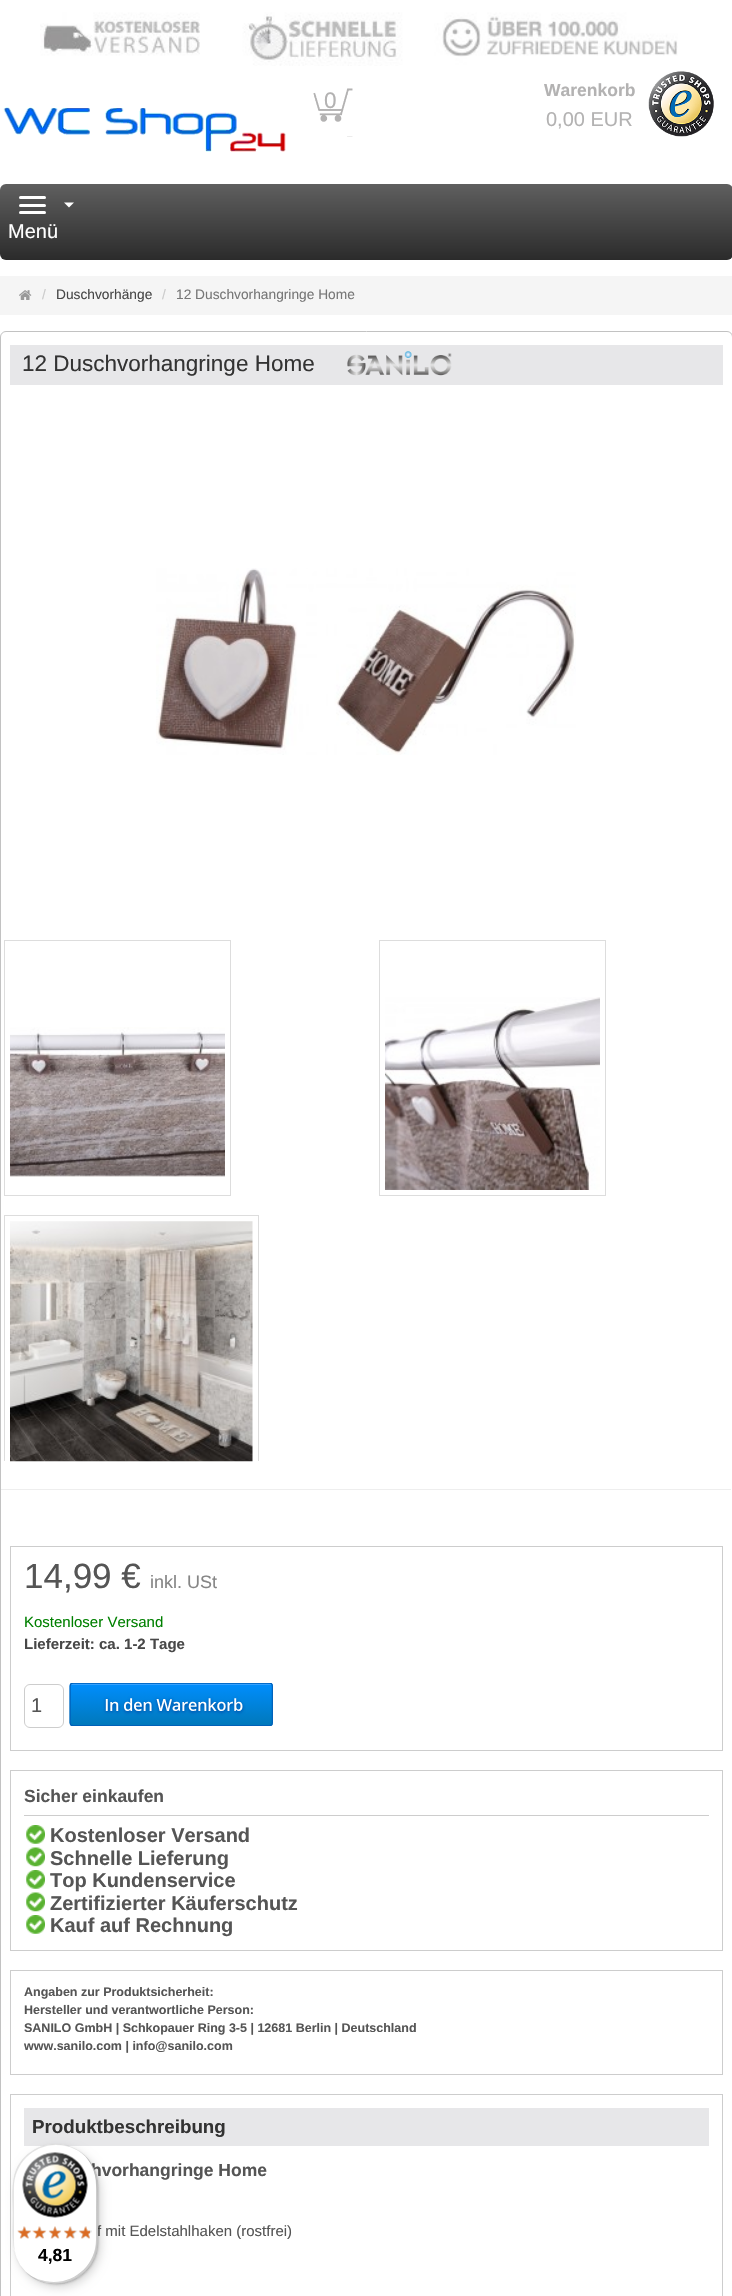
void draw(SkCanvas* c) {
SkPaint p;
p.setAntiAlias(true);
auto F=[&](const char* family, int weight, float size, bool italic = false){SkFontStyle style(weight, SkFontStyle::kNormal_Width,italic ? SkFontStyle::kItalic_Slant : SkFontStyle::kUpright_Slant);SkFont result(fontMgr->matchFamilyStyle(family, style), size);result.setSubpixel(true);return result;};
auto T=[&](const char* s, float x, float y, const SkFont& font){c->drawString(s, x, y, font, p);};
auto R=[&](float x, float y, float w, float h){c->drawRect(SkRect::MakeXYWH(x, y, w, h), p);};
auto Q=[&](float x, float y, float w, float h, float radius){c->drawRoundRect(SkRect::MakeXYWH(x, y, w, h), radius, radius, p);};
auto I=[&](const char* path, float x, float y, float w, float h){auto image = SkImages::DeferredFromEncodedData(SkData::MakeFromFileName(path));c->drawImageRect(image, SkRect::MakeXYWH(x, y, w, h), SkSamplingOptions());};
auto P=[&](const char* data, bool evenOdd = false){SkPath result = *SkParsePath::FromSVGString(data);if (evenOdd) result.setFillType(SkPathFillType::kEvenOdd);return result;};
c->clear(0xffffffff);
I("1.png",40,12,638,54);
I("2.png",3,107,283,45);
I("3.png",313,88,40,49);
auto f1 = F("Liberation Sans",400,22.5);
p.setColor(0xffb3b2b2);
T("0",324,108,f1);
auto f2 = F("Liberation Sans",700,17.5);
T("Warenkorb",544,96,f2);
auto f3 = F("Liberation Sans",400,20);
T("0,00 EUR",546,126,f3);
I("4.png",648,71,66,66);
{
const SkColor colors[] = {0xff5f5f5f,0xff2b2b2b};
const float stops[] = {0,1};
const SkPoint ends[] = {{366,184}, {366,260}};
p.setShader(SkGradientShader::MakeLinear(ends, colors, stops, 2, SkTileMode::kClamp));
p.setAlpha(255);
}
Q(0,184,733,76,6);
p.setShader(nullptr);
p.setColor(0xffffffff);
c->drawPath(P("M64 202.5h10l-5 5z"),p);
Q(19,196,27,3,1.5);
Q(19,204,27,3,1.5);
Q(19,211,27,3,1.5);
T("Menü",8,238,f3);
p.setColor(0xfff5f5f5);
R(0,276,732,39);
I("5.png",19,290,13,10);
auto f4 = F("Liberation Sans",400,13.75);
p.setColor(0xffcccccc);
T("/",42,299,f4);
p.setColor(0xff484848);
T("Duschvorhänge",56,299,f4);
p.setColor(0xffcccccc);
T("/",162,299,f4);
p.setColor(0xff777777);
T("12 Duschvorhangringe Home",176,299,f4);
p.setStroke(true);
p.setStrokeWidth(1);
p.setColor(0xffc2c2c2);
c->drawRoundRect(SkRect::MakeXYWH(.5,331.5,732,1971),5.5,5.5,p);
p.setStroke(false);
p.setColor(0xffe7e7e9);
R(10,345,713,40);
p.setColor(0xff333333);
T("12 Duschvorhangringe Home",22,371,f1);
I("6.png",347,351,105,25);
I("7.png",156,568,420,187);
p.setStroke(true);
p.setColor(0xffdddddd);
c->drawRect(SkRect::MakeXYWH(4.5,940.5,226,255),p);
I("8.png",10,1027,215,150);
c->drawRect(SkRect::MakeXYWH(379.5,940.5,226,255),p);
I("9.png",385,997,215,193);
c->save();
c->clipRect(SkRect::MakeXYWH(0,940,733,521));
c->drawRect(SkRect::MakeXYWH(4.5,1215.5,254,255),p);
c->restore();
I("10.png",10,1221,243,241);
p.setStroke(false);
p.setColor(0xffeeeeee);
R(1,1489,730,1);
p.setStroke(true);
p.setColor(0xffcdcdcd);
c->drawRect(SkRect::MakeXYWH(10.5,1546.5,712,204),p);
auto f5 = F("Liberation Sans",400,35);
p.setStroke(false);
p.setColor(0xff555555);
T("14,99 €",24,1588,f5);
auto f6 = F("Liberation Sans",400,18);
p.setColor(0xff868686);
T("inkl. USt",150,1588,f6);
auto f7 = F("Liberation Sans",400,15);
p.setColor(0xff008000);
T("Kostenloser Versand",24,1627,f7);
auto f8 = F("Liberation Sans",700,15);
p.setColor(0xff484848);
T("Lieferzeit: ca. 1-2 Tage",24,1649,f8);
p.setStroke(true);
p.setColor(0xffcdcdcd);
c->drawRoundRect(SkRect::MakeXYWH(24.5,1684.5,39,43),5.5,5.5,p);
p.setStroke(false);
p.setColor(0xff555555);
T("1",31,1712,f3);
I("11.png",69,1683,204,43);
p.setStroke(true);
p.setColor(0xffcdcdcd);
c->drawRect(SkRect::MakeXYWH(10.5,1770.5,712,180),p);
p.setStroke(false);
p.setColor(0xff555555);
T("Sicher einkaufen",24,1802,f2);
p.setColor(0xffcdcdcd);
R(24,1815,685,1);
I("12.png",26,1825,19,19);
auto f9 = F("Liberation Sans",700,20);
p.setColor(0xff555555);
T("Kostenloser Versand",50,1842,f9);
I("13.png",26,1847,19,20);
T("Schnelle Lieferung",50,1865,f9);
I("12.png",26,1870,19,19);
T("Top Kundenservice",50,1887,f9);
I("14.png",26,1892,19,20);
T("Zertifizierter Käuferschutz",50,1910,f9);
I("12.png",26,1915,19,19);
T("Kauf auf Rechnung",50,1932,f9);
p.setStroke(true);
p.setColor(0xffcdcdcd);
c->drawRect(SkRect::MakeXYWH(10.5,1970.5,712,104),p);
auto f10 = F("Liberation Sans",700,12.5);
p.setStroke(false);
p.setColor(0xff555555);
T("Angaben zur Produktsicherheit:",24,1996,f10);
T("Hersteller und verantwortliche Person:",24,2014,f10);
T("SANILO GmbH | Schkopauer Ring 3-5 | 12681 Berlin | Deutschland",24,2032,f10);
T("www.sanilo.com | info@sanilo.com",24,2050,f10);
p.setStroke(true);
p.setColor(0xffcdcdcd);
c->drawRect(SkRect::MakeXYWH(10.5,2094.5,712,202),p);
p.setStroke(false);
p.setColor(0xffe7e7e9);
R(24,2108,685,38);
auto f11 = F("Liberation Sans",700,18.75);
p.setColor(0xff333333);
T("Produktbeschreibung",32,2133,f11);
p.setColor(0xff555555);
T("hvorhangringe Home",91,2176,f2);
T("f mit Edelstahlhaken (rostfrei)",97,2236,f7);
p.setColor(0x26000000);
p.setMaskFilter(SkMaskFilter::MakeBlur(kNormal_SkBlurStyle, 5));
c->drawRoundRect(SkRect::MakeXYWH(16,2148,85,140),42.5,42.5,p);
p.setMaskFilter(nullptr);
p.setMaskFilter(SkMaskFilter::MakeBlur(kNormal_SkBlurStyle, 1));
c->drawRoundRect(SkRect::MakeXYWH(14,2145,85,140),42.5,42.5,p);
p.setMaskFilter(nullptr);
p.setColor(0xffffffff);
Q(13,2144,85,140,42.5);
p.setColor(0x1a000000);
c->drawPath(P("M56 2145c13 0 24 5 32 14c-21-24-59-18-72 11c-5 12-3 30-3 44c0 21-3 42 13 58c-8-8-12-18-12-30v-54c0-24 19-43 42-43z"),p);
p.setColor(0x33000000);
c->drawPath(P("M25 2271c7 8 18 13 31 13c23 0 42-19 42-42v-56c0-13-6-25-16-33c9 8 14 20 14 32v55c0 23-19 42-42 42c-11 0-22-4-29-11z"),p);
p.setColor(0x33323232);
c->drawPath(P("M25 2272c8 7 19 12 31 12c23 0 42-19 42-42v-56c0-12-6-24-15-32c17 16 14 38 14 59c0 14 2 31-3 44c-12 27-47 35-69 15z"),p);
p.setColor(0x4dffffff);
c->drawPath(P("M27 2273c8 7 18 11 29 11c23 0 42-19 42-42v-56c0-12-6-24-15-32c18 16 14 38 14 60c0 13 2 31-3 43c-12 26-45 34-67 16z"),p);
I("15.png",22,2152,66,66);
I("21.png",18,2226,13,13);
I("16.png",17,2226,15,13);
I("22.png",34,2226,12,13);
I("17.png",32,2226,15,13);
I("23.png",49,2226,12,13);
I("18.png",48,2226,14,13);
I("24.png",64,2226,14,13);
I("19.png",63,2226,14,13);
I("25.png",79,2226,13,13);
I("20.png",78,2226,12,13);
p.setColor(0xff000000);
T("4,81",38,2261,f2);
}
